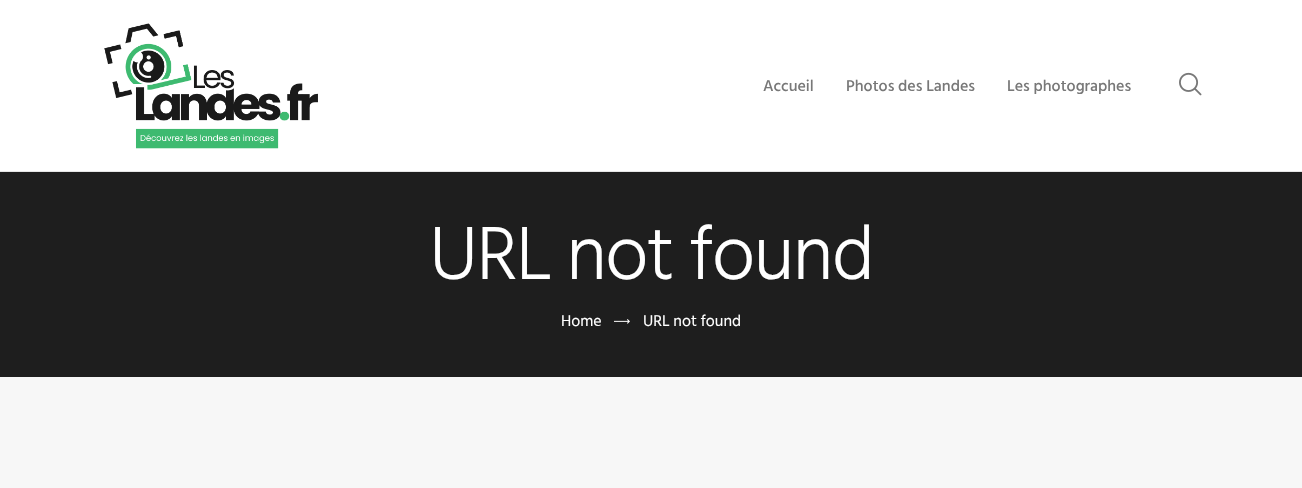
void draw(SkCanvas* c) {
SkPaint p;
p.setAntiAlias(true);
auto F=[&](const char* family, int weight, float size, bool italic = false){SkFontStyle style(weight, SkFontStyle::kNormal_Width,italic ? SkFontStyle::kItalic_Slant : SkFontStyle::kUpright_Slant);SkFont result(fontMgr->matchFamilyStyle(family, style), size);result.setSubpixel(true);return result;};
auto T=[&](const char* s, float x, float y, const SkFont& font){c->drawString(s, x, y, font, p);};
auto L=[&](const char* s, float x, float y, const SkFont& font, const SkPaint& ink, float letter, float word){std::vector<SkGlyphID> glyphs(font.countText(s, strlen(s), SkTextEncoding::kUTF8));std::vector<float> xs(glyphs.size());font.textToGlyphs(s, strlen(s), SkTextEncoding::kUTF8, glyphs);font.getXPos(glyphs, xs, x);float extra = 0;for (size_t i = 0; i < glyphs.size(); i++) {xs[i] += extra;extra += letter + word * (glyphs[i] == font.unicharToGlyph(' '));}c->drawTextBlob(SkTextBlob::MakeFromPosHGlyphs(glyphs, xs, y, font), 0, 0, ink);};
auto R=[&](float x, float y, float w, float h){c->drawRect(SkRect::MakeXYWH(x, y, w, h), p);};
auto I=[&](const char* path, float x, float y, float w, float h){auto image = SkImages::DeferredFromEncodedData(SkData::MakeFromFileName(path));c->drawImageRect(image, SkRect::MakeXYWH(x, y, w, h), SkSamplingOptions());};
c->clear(0xfff7f7f7);
p.setColor(0xffffffff);
R(0,0,1302,171);
p.setColor(0xffe6e6e6);
R(0,171,1302,1);
I("1.png",104,23,214,126);
auto f1 = F("Hind Siliguri",500,16);
p.setColor(0xff787878);
T("Accueil",763,91,f1);
T("Photos des Landes",846,91,f1);
T("Les photographes",1007,91,f1);
I("2.png",1179,72,23,24);
p.setColor(0xff1e1e1e);
R(0,172,1302,205);
auto f2 = F("Hind Siliguri",300,77);
p.setColor(0xffffffff);
L("URL not found",429,279,f2,p,-1.6,0);
auto f3 = F("Hind Siliguri",400,16);
T("Home",561,326,f3);
I("3.png",614,319,16,5);
T("URL not found",643,326,f3);
}
